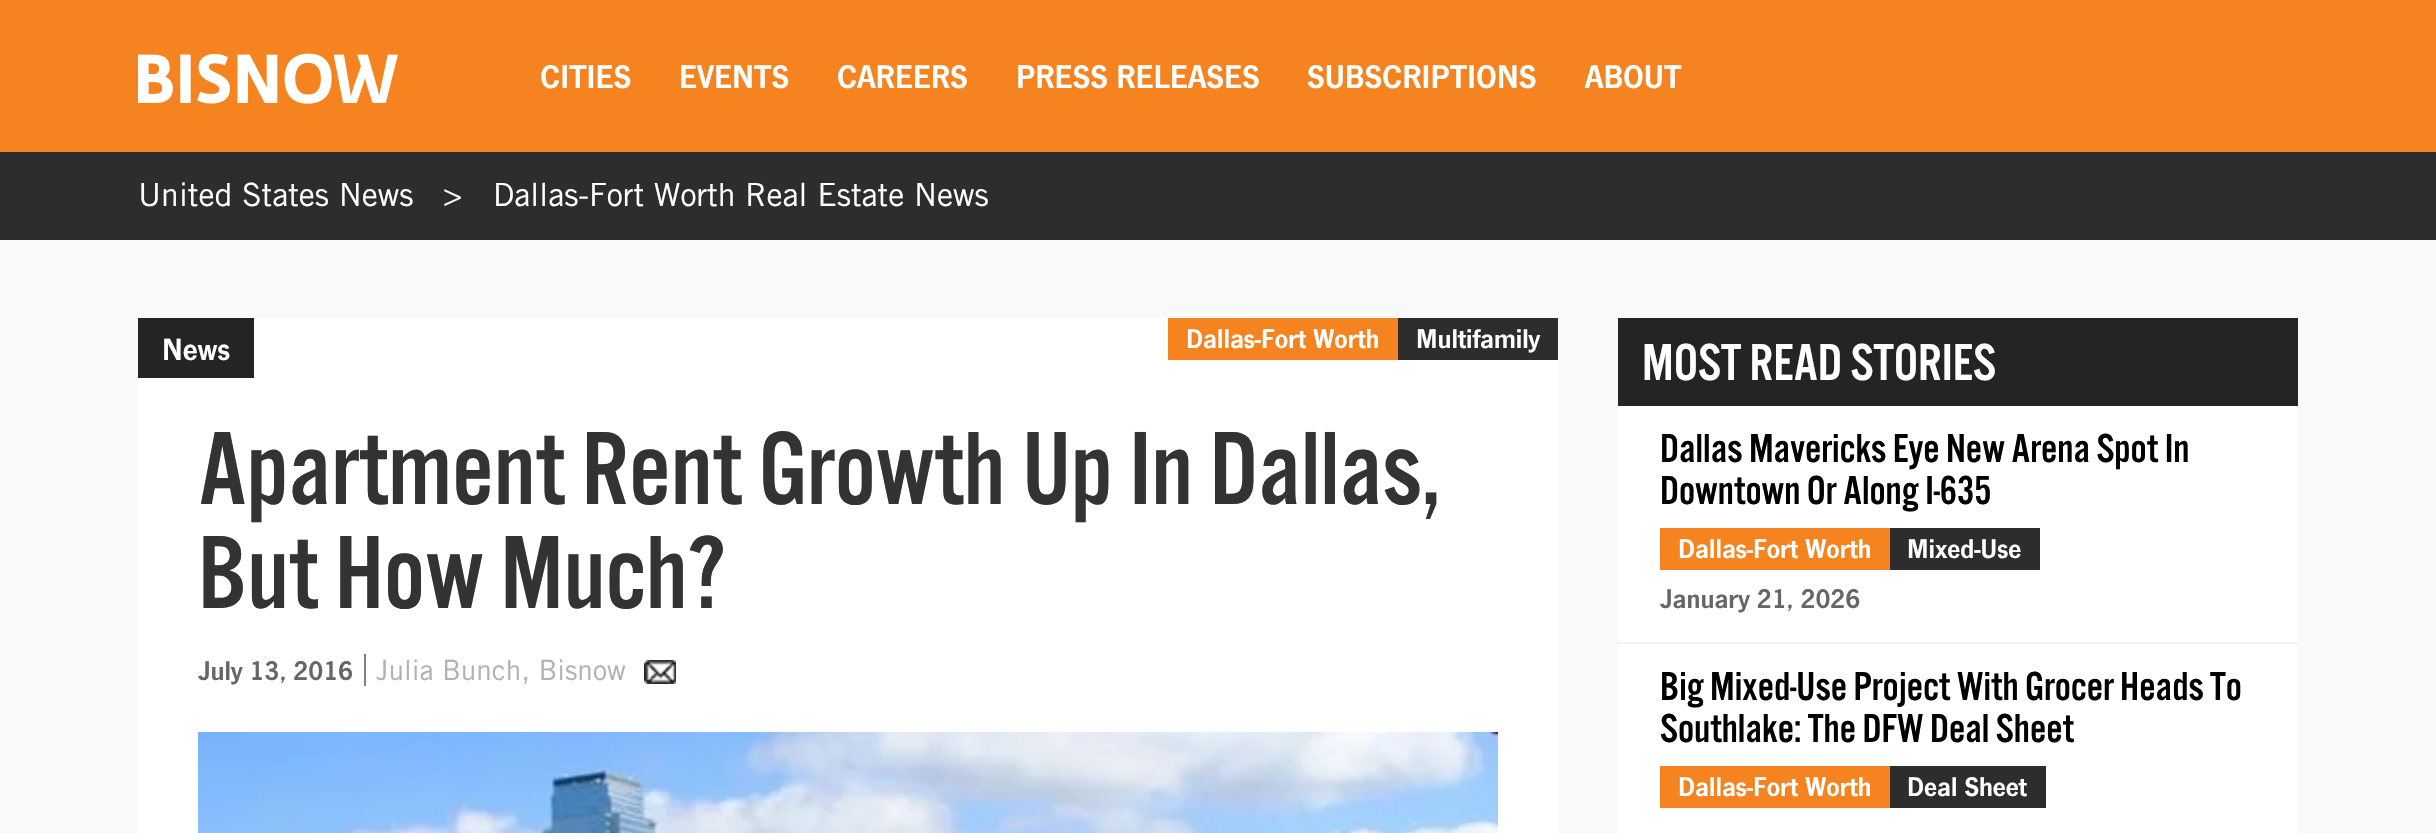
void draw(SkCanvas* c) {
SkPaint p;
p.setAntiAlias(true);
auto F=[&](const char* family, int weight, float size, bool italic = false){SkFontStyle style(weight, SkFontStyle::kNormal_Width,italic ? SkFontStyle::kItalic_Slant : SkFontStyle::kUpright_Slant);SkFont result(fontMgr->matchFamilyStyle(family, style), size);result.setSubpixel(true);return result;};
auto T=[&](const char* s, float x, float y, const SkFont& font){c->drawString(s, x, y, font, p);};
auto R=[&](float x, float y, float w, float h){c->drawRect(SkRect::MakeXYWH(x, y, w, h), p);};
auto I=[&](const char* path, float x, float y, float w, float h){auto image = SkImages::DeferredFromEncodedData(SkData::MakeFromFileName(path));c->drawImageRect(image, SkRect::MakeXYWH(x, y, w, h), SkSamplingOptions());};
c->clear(0xfff8f9fa);
p.setColor(0xfff58320);
R(0,0,2436,152);
I("1.png",138,53,260,51);
auto f1 = F("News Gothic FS",600,34);
p.setColor(0xffffffff);
T("CITIES",540,88,f1);
T("EVENTS",679,88,f1);
T("CAREERS",837,88,f1);
T("PRESS RELEASES",1016,88,f1);
T("SUBSCRIPTIONS",1307,88,f1);
T("ABOUT",1585,88,f1);
p.setColor(0xff2d2d2d);
R(0,152,2436,88);
auto f2 = F("Trade Gothic",400,32);
p.setColor(0xffffffff);
T("United States News",138,206,f2);
T(">",443,206,f2);
T("Dallas-Fort Worth Real Estate News",493,206,f2);
R(138,318,1420,515);
p.setColor(0xfff58320);
R(1168,318,230,42);
auto f3 = F("News Gothic FS",600,28);
p.setColor(0xffffffff);
T("Dallas-Fort Worth",1186,348,f3);
p.setColor(0xff2d2d2d);
R(1398,318,160,42);
p.setColor(0xffffffff);
T("Multifamily",1416,348,f3);
p.setColor(0xff666666);
T("July 13, 2016",198,680,f3);
auto f4 = F("Trade Gothic",400,28);
p.setColor(0xffb1b1b1);
T("Julia Bunch, Bisnow",376,680,f4);
p.setColor(0xff808080);
R(364,654,2,32);
I("2.png",644,660,32,24);
I("3.png",198,732,1300,101);
p.setColor(0xff242424);
R(138,318,116,60);
auto f5 = F("News Gothic FS",600,32);
p.setColor(0xffffffff);
T("News",162,360,f5);
auto f6 = F("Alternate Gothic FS",400,108);
p.setColor(0xff333333);
T("Apartment Rent Growth Up In Dallas,",198,504,f6);
T("But How Much?",198,608,f6);
p.setColor(0xffffffff);
R(1618,406,680,427);
p.setColor(0xff242424);
R(1618,318,680,88);
auto f7 = F("Alternate Gothic FS",400,54);
p.setColor(0xffffffff);
T("MOST READ STORIES",1642,380,f7);
auto f8 = F("Alternate Gothic FS",400,42);
p.setColor(0xff000000);
T("Dallas Mavericks Eye New Arena Spot In",1660,462,f8);
T("Downtown Or Along I-635",1660,504,f8);
p.setColor(0xfff58320);
R(1660,528,230,42);
p.setColor(0xffffffff);
T("Dallas-Fort Worth",1678,558,f3);
p.setColor(0xff2d2d2d);
R(1890,528,150,42);
p.setColor(0xffffffff);
T("Mixed-Use",1907,558,f3);
p.setColor(0xff666666);
T("January 21, 2026",1660,608,f3);
p.setColor(0xfff0f3f3);
R(1618,642,680,2);
p.setColor(0xff000000);
T("Big Mixed-Use Project With Grocer Heads To",1660,700,f8);
T("Southlake: The DFW Deal Sheet",1660,742,f8);
p.setColor(0xfff58320);
R(1660,766,230,42);
p.setColor(0xffffffff);
T("Dallas-Fort Worth",1678,796,f3);
p.setColor(0xff2d2d2d);
R(1890,766,156,42);
p.setColor(0xffffffff);
T("Deal Sheet",1907,796,f3);
}
